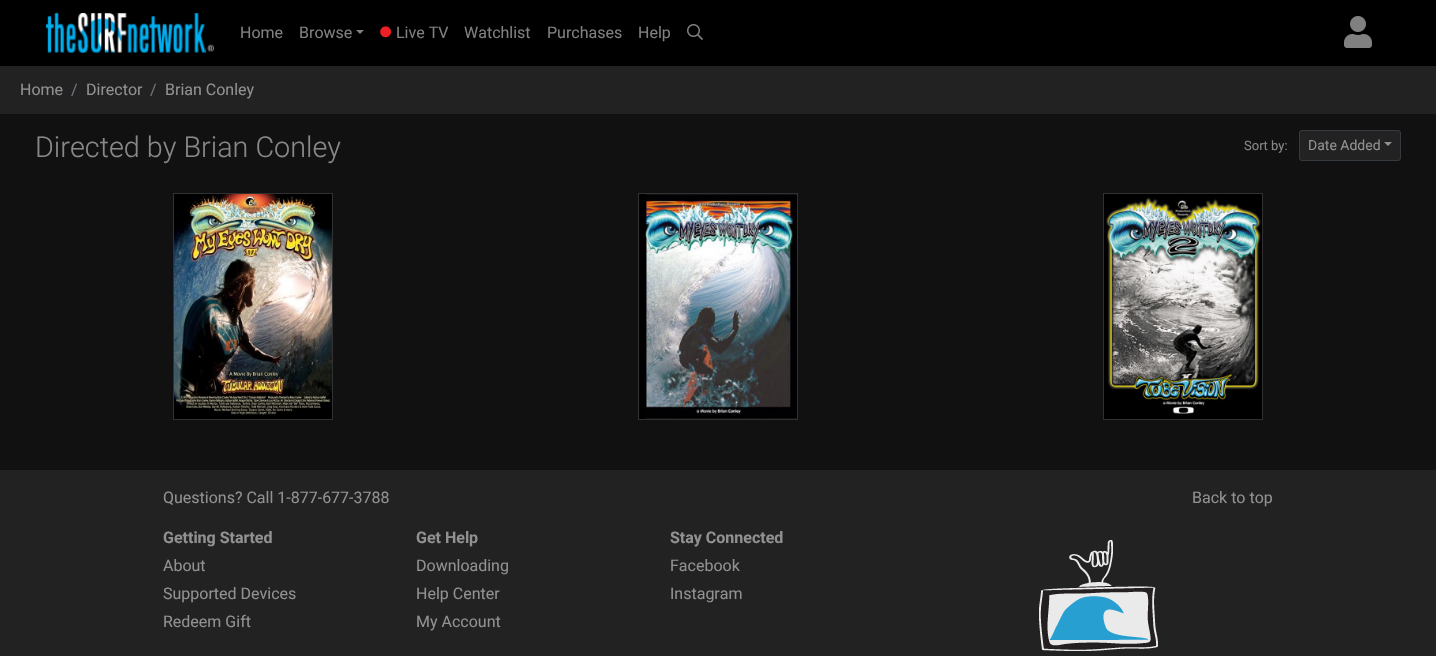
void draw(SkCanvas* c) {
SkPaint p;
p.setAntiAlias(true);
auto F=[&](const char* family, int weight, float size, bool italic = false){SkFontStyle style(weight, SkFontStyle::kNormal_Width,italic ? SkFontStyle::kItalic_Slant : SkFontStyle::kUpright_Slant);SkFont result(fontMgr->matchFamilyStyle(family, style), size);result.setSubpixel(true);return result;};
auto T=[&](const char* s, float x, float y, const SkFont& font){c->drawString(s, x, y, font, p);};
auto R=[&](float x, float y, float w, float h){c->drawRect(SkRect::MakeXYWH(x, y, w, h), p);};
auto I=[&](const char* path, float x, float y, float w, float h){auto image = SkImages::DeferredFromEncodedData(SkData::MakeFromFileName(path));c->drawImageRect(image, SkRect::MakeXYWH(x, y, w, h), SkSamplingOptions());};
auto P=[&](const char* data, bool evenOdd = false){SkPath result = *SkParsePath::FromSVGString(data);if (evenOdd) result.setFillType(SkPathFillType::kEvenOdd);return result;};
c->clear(0xff111111);
p.setColor(0xff000000);
R(0,0,1436,66);
I("1.png",46,13,169,40);
auto f1 = F("Roboto",400,16);
p.setColor(0xff808080);
T("Home",240,38,f1);
T("Browse",299,38,f1);
c->drawPath(P("M356 30h8l-4 4z"),p);
I("2.png",380,26,11,12);
T("Live TV",396,38,f1);
T("Watchlist",464,38,f1);
T("Purchases",547,38,f1);
T("Help",638,38,f1);
I("3.png",687,24,16,16);
I("4.png",1344,16,28,32);
p.setColor(0xff222222);
R(0,66,1436,48);
p.setColor(0xff919191);
T("Home",20,95,f1);
p.setColor(0xff6c757d);
T("/",71,95,f1);
p.setColor(0xff919191);
T("Director",86,95,f1);
p.setColor(0xff6c757d);
T("/",150,95,f1);
p.setColor(0xff919191);
T("Brian Conley",165,95,f1);
auto f2 = F("Roboto",300,28.75);
p.setColor(0xff888888);
T("Directed by Brian Conley",35,157,f2);
auto f3 = F("Roboto",400,13);
T("Sort by:",1244,150,f3);
p.setColor(0xff222222);
c->drawRoundRect(SkRect::MakeXYWH(1299.5,130.5,101,30),2.5,2.5,p);
p.setStroke(true);
p.setStrokeWidth(1);
p.setColor(0xff343a40);
c->drawRoundRect(SkRect::MakeXYWH(1299.5,130.5,101,30),2.5,2.5,p);
auto f4 = F("Roboto",400,14);
p.setStroke(false);
p.setColor(0xff919191);
T("Date Added",1308,150,f4);
c->drawPath(P("M1384 142h8l-4 4z"),p);
p.setStroke(true);
p.setColor(0xff313131);
c->drawRect(SkRect::MakeXYWH(173.5,193.5,159,226),p);
I("5.png",174,194,158,225);
c->drawRect(SkRect::MakeXYWH(638.5,193.5,159,226),p);
I("6.png",639,194,158,225);
c->drawRect(SkRect::MakeXYWH(1103.5,193.5,159,226),p);
I("7.png",1104,194,158,225);
p.setStroke(false);
p.setColor(0xff222222);
R(0,470,1436,186);
p.setColor(0xff919191);
T("Questions? Call 1-877-677-3788",163,503,f1);
T("Back to top",1192,503,f1);
auto f5 = F("Roboto",700,16);
T("Getting Started",163,543,f5);
T("About",163,571,f1);
T("Supported Devices",163,599,f1);
T("Redeem Gift",163,627,f1);
T("Get Help",416,543,f5);
T("Downloading",416,571,f1);
T("Help Center",416,599,f1);
T("My Account",416,627,f1);
T("Stay Connected",670,543,f5);
T("Facebook",670,571,f1);
T("Instagram",670,599,f1);
I("8.png",1039,540,119,111);
}
